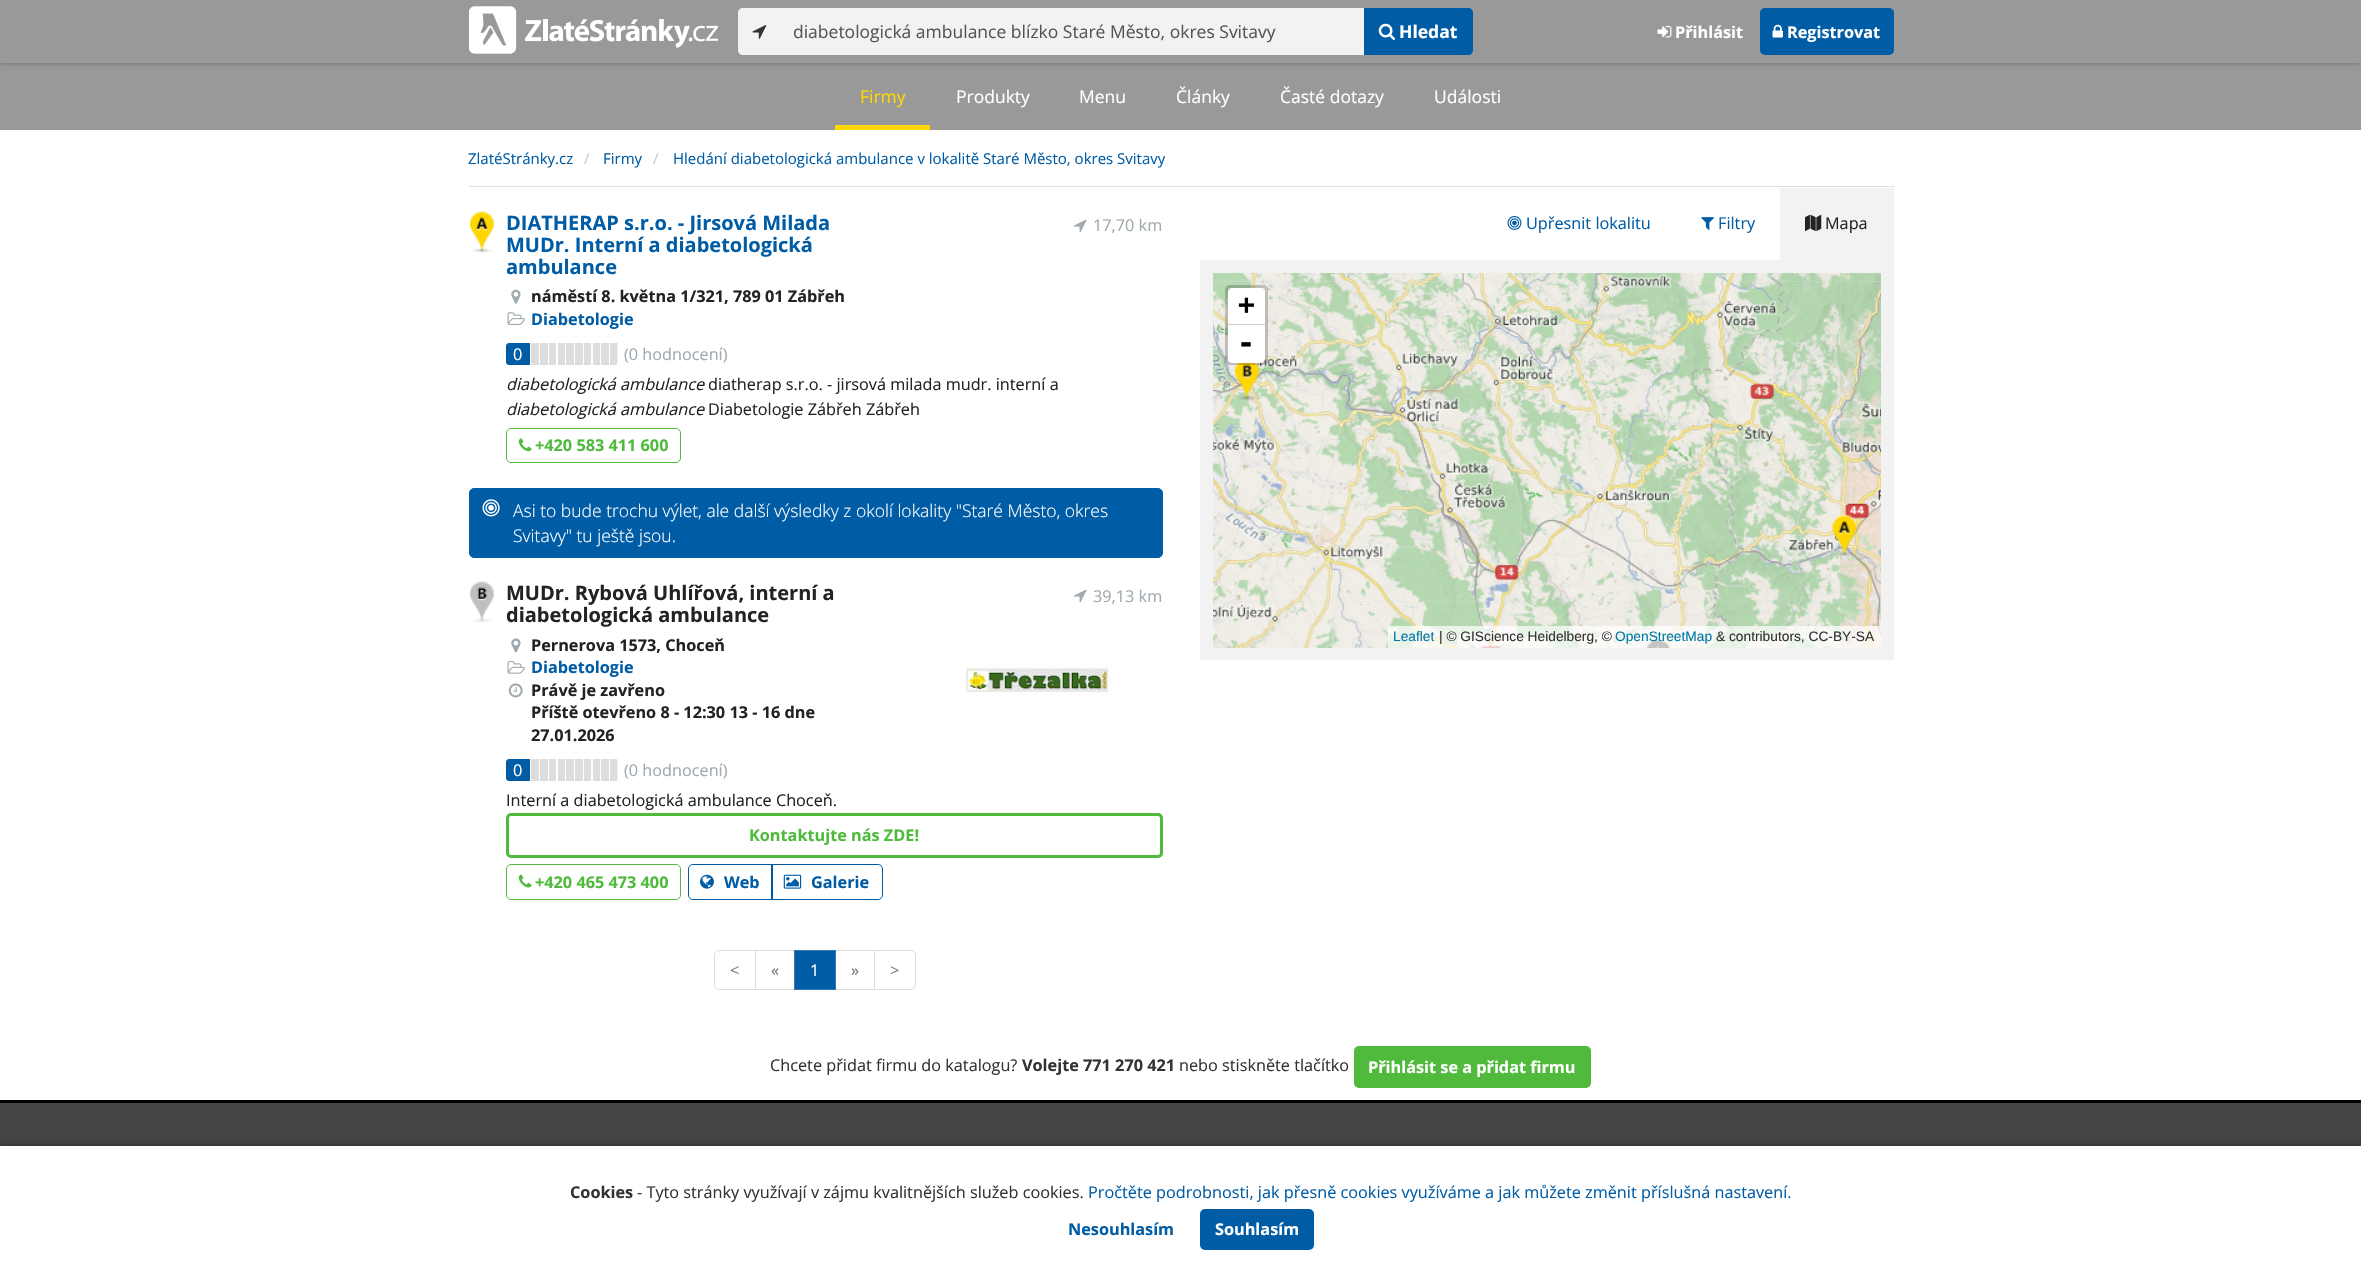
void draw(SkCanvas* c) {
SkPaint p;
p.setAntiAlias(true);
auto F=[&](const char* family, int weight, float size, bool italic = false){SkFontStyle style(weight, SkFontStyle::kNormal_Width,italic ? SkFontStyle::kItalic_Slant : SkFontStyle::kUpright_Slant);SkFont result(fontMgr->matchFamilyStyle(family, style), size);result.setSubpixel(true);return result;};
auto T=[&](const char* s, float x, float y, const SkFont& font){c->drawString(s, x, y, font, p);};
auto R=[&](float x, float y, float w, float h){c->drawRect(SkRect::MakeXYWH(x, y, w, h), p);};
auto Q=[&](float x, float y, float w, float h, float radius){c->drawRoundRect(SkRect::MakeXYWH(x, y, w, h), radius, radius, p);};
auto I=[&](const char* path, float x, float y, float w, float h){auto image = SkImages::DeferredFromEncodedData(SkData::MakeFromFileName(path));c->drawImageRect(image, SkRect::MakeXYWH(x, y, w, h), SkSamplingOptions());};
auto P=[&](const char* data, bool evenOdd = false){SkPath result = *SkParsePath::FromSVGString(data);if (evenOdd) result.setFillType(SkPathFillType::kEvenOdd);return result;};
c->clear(0xffffffff);
p.setColor(0xff999999);
R(0,63,2361,67);
c->save();
c->clipPath(P("M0 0h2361v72h-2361zm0 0h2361v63h-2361z",true),true);
p.setColor(0x4d000000);
p.setMaskFilter(SkMaskFilter::MakeBlur(kNormal_SkBlurStyle, 2.5));
c->drawRect(SkRect::MakeXYWH(0,0,2361,63),p);
p.setMaskFilter(nullptr);
c->restore();
p.setColor(0x66000000);
R(0,0,2361,63);
I("1.png",469,6,250,48);
p.setColor(0xfff2f2f2);
c->drawPath(P("M743 8h38v47h-38c-3 0-5-2-5-5v-37c0-3 2-5 5-5z"),p);
I("2.png",752,25,15,14);
R(781,8,583,47);
auto f1 = F("Open Sans",400,17.5);
p.setColor(0xff555555);
T("diabetologická ambulance blízko Staré Město, okres Svitavy",793,38,f1);
p.setColor(0xff005ca5);
c->drawPath(P("M1364 8h104c3 0 5 2 5 5v37c0 3-2 5-5 5h-104z"),p);
I("3.png",1378,23,17,17);
auto f2 = F("Open Sans",700,17.5);
p.setColor(0xffffffff);
T("Hledat",1399,38,f2);
I("4.png",1657,25,15,13);
auto f3 = F("Open Sans",700,16.25);
T("Přihlásit",1675,38,f3);
p.setColor(0xff005ca5);
Q(1760,8,134,47,5);
I("5.png",1772,24,11,14);
p.setColor(0xffffffff);
T("Registrovat",1787,38,f3);
p.setColor(0xffffd700);
R(835,125,95,5);
T("Firmy",860,103,f1);
p.setColor(0xffffffff);
T("Produkty",956,103,f1);
T("Menu",1079,103,f1);
T("Články",1176,103,f1);
T("Časté dotazy",1280,103,f1);
T("Události",1434,103,f1);
p.setColor(0xffdee1e3);
R(469,186,1425,1);
auto f4 = F("Open Sans",400,15);
p.setColor(0xff005ca5);
T("ZlatéStránky.cz",468,164,f4);
p.setColor(0xffcccccc);
T("/",584,164,f4);
p.setColor(0xff005ca5);
T("Firmy",603,164,f4);
p.setColor(0xffcccccc);
T("/",653,164,f4);
p.setColor(0xff005ca5);
T("Hledání diabetologická ambulance v lokalitě Staré Město, okres Svitavy",673,164,f4);
I("6.png",469,211,25,42);
auto f5 = F("Open Sans",700,20);
T("DIATHERAP s.r.o. - Jirsová Milada",506,230,f5);
T("MUDr. Interní a diabetologická",506,252,f5);
T("ambulance",506,274,f5);
I("7.png",511,289,10,15);
p.setColor(0xff232323);
T("náměstí 8. května 1/321, 789 01 Zábřeh",531,302,f3);
I("8.png",507,312,18,13);
p.setColor(0xff005ca5);
T("Diabetologie",531,325,f3);
c->drawPath(P("M508.5 343.5h21v21h-21c-1 0-2-1-2-2v-17c0-1 1-2 2-2z"),p);
p.setStroke(true);
p.setStrokeWidth(1);
c->drawPath(P("M508.5 343.5h21v21h-21c-1 0-2-1-2-2v-17c0-1 1-2 2-2z"),p);
auto f6 = F("Open Sans",400,16.25);
p.setStroke(false);
p.setColor(0xffffffff);
T("0",513,360,f6);
p.setColor(0xffdddddd);
R(531,343,8,22);
R(540,343,8,22);
R(549,343,7,22);
R(558,343,7,22);
R(566,343,8,22);
R(575,343,8,22);
R(584,343,7,22);
R(593,343,7,22);
R(601,343,8,22);
c->save();
c->clipRect(SkRect::MakeXYWH(531,343,87,22));
c->drawPath(P("M616 342.5h-6v22.5c8 0 7.5 1.5 7.5-6.5v-12.5c0-1.5 .5-3.5-1.5-3.5z"),p);
c->restore();
p.setColor(0xffa0a9ae);
T("(0 hodnocení)",624,360,f6);
I("9.png",1073,219,14,14);
T("17,70 km",1093,231,f6);
auto f7 = F("Open Sans",400,16.25,true);
p.setColor(0xff232323);
T("diabetologická ambulance",506,390,f7);
T("diatherap s.r.o. - jirsová milada mudr. interní a",708,390,f6);
T("diabetologická ambulance",506,415,f7);
T("Diabetologie Zábřeh Zábřeh",708,415,f6);
p.setStroke(true);
p.setColor(0xff4fba3c);
c->drawRoundRect(SkRect::MakeXYWH(506.5,428.5,174,34),4.5,4.5,p);
I("10.png",518,438,14,14);
p.setStroke(false);
T("+420 583 411 600",535,451,f3);
p.setColor(0xff005ca5);
c->drawRoundRect(SkRect::MakeXYWH(469.5,488.5,693,69),4.5,4.5,p);
p.setStroke(true);
c->drawRoundRect(SkRect::MakeXYWH(469.5,488.5,693,69),4.5,4.5,p);
I("11.png",482,499,18,18);
auto f8 = F("Open Sans",300,17.5);
p.setStroke(false);
p.setColor(0xffffffff);
T("Asi to bude trochu výlet, ale další výsledky z okolí lokality \"Staré Město, okres",513,517,f8);
T("Svitavy\" tu ještě jsou.",513,542,f8);
I("12.png",470,581,24,42);
p.setColor(0xff232323);
T("MUDr. Rybová Uhlířová, interní a",506,600,f5);
T("diabetologická ambulance",506,622,f5);
I("13.png",511,638,10,15);
T("Pernerova 1573, Choceň",531,651,f3);
I("14.png",507,661,18,13);
p.setColor(0xff005ca5);
T("Diabetologie",531,673,f3);
I("15.png",508,683,15,15);
p.setColor(0xff232323);
T("Právě je zavřeno",531,696,f3);
T("Příště otevřeno 8 - 12:30 13 - 16 dne",531,718,f3);
T("27.01.2026",531,741,f3);
p.setColor(0xff005ca5);
c->drawPath(P("M508.5 759.5h21v21h-21c-1 0-2-1-2-2v-17c0-1 1-2 2-2z"),p);
p.setStroke(true);
c->drawPath(P("M508.5 759.5h21v21h-21c-1 0-2-1-2-2v-17c0-1 1-2 2-2z"),p);
p.setStroke(false);
p.setColor(0xffffffff);
T("0",513,776,f6);
p.setColor(0xffdddddd);
R(531,759,8,22);
R(540,759,8,22);
R(549,759,7,22);
R(558,759,7,22);
R(566,759,8,22);
R(575,759,8,22);
R(584,759,7,22);
R(593,759,7,22);
R(601,759,8,22);
c->save();
c->clipRect(SkRect::MakeXYWH(531,759,87,22));
c->drawPath(P("M616 759h-6v22c8 0 7.5 2 7.5-6v-13c0-1 .5-3-1.5-3z"),p);
c->restore();
p.setColor(0xffa0a9ae);
T("(0 hodnocení)",624,776,f6);
I("9.png",1073,589,14,14);
T("39,13 km",1093,602,f6);
I("16.png",964,662,149,31);
p.setColor(0xff232323);
T("Interní a diabetologická ambulance Choceň.",506,806,f6);
p.setStroke(true);
p.setStrokeWidth(3);
p.setColor(0xff4fba3c);
c->drawRoundRect(SkRect::MakeXYWH(507.5,814.5,654,42),3.5,3.5,p);
p.setStroke(false);
T("Kontaktujte nás ZDE!",749,841,f3);
p.setStroke(true);
p.setStrokeWidth(1);
c->drawRoundRect(SkRect::MakeXYWH(506.5,864.5,174,35),4.5,4.5,p);
I("17.png",518,874,14,14);
p.setStroke(false);
T("+420 465 473 400",535,888,f3);
p.setStroke(true);
p.setColor(0xff005ca5);
c->drawPath(P("M693 864.5h79.5v35h-79.5c-2.5 0-4.5-2-4.5-4.5v-26c0-2.5 2-4.5 4.5-4.5z"),p);
I("18.png",700,874,14,15);
p.setStroke(false);
T("Web",724,888,f3);
p.setStroke(true);
c->drawPath(P("M771.5 864.5h106.5c2.5 0 4.5 2 4.5 4.5v26c0 2.5-2 4.5-4.5 4.5h-106.5z"),p);
I("19.png",783,874,19,15);
p.setStroke(false);
T("Galerie",811,888,f3);
p.setStroke(true);
p.setColor(0xffdddddd);
c->drawPath(P("M719 950.5h36.5v39h-36.5c-2.5 0-4.5-2-4.5-4.5v-30c0-2.5 2-4.5 4.5-4.5z"),p);
p.setStroke(false);
p.setColor(0xff777777);
T("<",730,976,f6);
p.setStroke(true);
p.setColor(0xffdddddd);
c->drawRect(SkRect::MakeXYWH(755.5,950.5,39,39),p);
p.setStroke(false);
p.setColor(0xff777777);
T("«",771,976,f6);
p.setStroke(true);
p.setColor(0xffdddddd);
c->drawRect(SkRect::MakeXYWH(835.5,950.5,39,39),p);
p.setStroke(false);
p.setColor(0xff005ca5);
c->drawRect(SkRect::MakeXYWH(794.5,950.5,41,39),p);
p.setStroke(true);
p.setColor(0xff337ab7);
c->drawRect(SkRect::MakeXYWH(794.5,950.5,41,39),p);
p.setStroke(false);
p.setColor(0xffffffff);
T("1",810,976,f6);
p.setColor(0xff777777);
T("»",851,976,f6);
p.setColor(0xffffffff);
c->drawPath(P("M874.5 950.5h36.5c2.5 0 4.5 2 4.5 4.5v30c0 2.5-2 4.5-4.5 4.5h-36.5z"),p);
p.setStroke(true);
p.setColor(0xffdddddd);
c->drawPath(P("M874.5 950.5h36.5c2.5 0 4.5 2 4.5 4.5v30c0 2.5-2 4.5-4.5 4.5h-36.5z"),p);
p.setStroke(false);
p.setColor(0xff777777);
T(">",890,976,f6);
I("20.png",1507,216,15,14);
p.setColor(0xff005ca5);
T("Upřesnit lokalitu",1526,229,f6);
I("21.png",1701,217,13,13);
T("Filtry",1718,229,f6);
p.setColor(0xfff2f2f2);
R(1780,188,114,72);
I("22.png",1805,214,17,17);
p.setColor(0xff232323);
T("Mapa",1825,229,f6);
p.setColor(0xfff2f2f2);
R(1200,260,694,400);
p.setColor(0xffdddddd);
R(1213,273,668,375);
I("23.png",1213,273,307,8);
I("24.png",1520,273,320,8);
I("25.png",1840,273,41,8);
I("27.png",1519,281,321,321);
I("26.png",1213,281,307,320);
I("28.png",1839,281,42,320);
I("29.png",1213,601,307,47);
I("30.png",1520,601,320,47);
I("31.png",1840,601,41,47);
I("32.png",1234,363,26,37);
I("33.png",1832,514,26,43);
I("34.png",1646,639,25,9);
p.setStroke(true);
p.setStrokeWidth(3);
p.setColor(0x33000000);
c->drawRoundRect(SkRect::MakeXYWH(1226.5,286.5,40,77),3.5,3.5,p);
p.setStroke(false);
p.setColor(0xffffffff);
c->drawPath(P("M1233 288h27c3 0 5 2 5 5v32h-37v-32c0-3 2-5 5-5z"),p);
p.setColor(0xffcccccc);
R(1228,324,37,1);
auto f9 = F("DejaVu Sans Mono",700,28);
p.setColor(0xff000000);
T("+",1238,314,f9);
p.setColor(0xffffffff);
c->drawPath(P("M1228 325h37v33c0 3-2 5-5 5h-27c-3 0-5-2-5-5z"),p);
auto f10 = F("DejaVu Sans Mono",700,30);
p.setColor(0xff000000);
T("-",1237,353,f10);
p.setColor(0xb3ffffff);
R(1388,626,493,22);
auto f11 = F("Liberation Sans",400,13.75);
p.setColor(0xff0078a8);
T("Leaflet",1393,641,f11);
p.setColor(0xff333333);
T("| © GIScience Heidelberg, ©",1439,641,f11);
p.setColor(0xff0078a8);
T("OpenStreetMap",1615,641,f11);
p.setColor(0xff333333);
T("& contributors, CC-BY-SA",1716,641,f11);
T("Chcete přidat firmu do katalogu?",770,1071,f6);
T("Volejte 771 270 421",1022,1071,f3);
T("nebo stiskněte tlačítko",1179,1071,f6);
p.setColor(0xff4fba3c);
Q(1354,1046,237,42,5);
p.setColor(0xffffffff);
T("Přihlásit se a přidat firmu",1368,1073,f3);
p.setColor(0xff444444);
R(0,1103,2361,43);
p.setColor(0xff000000);
R(0,1100,2361,3);
p.setColor(0x33000000);
p.setMaskFilter(SkMaskFilter::MakeBlur(kNormal_SkBlurStyle, 1));
c->drawRect(SkRect::MakeXYWH(0,1144,2361,136),p);
p.setMaskFilter(nullptr);
p.setColor(0xffffffff);
R(0,1146,2361,136);
p.setColor(0xff333333);
T("Cookies",570,1198,f3);
T("- Tyto stránky využívají v zájmu kvalitnějších služeb cookies.",637,1198,f6);
p.setColor(0xff005ca5);
T("Pročtěte podrobnosti, jak přesně cookies využíváme a jak můžete změnit příslušná nastavení.",1088,1198,f6);
T("Nesouhlasím",1068,1235,f3);
Q(1200,1209,114,41,5);
p.setColor(0xffffffff);
T("Souhlasím",1215,1235,f3);
}
